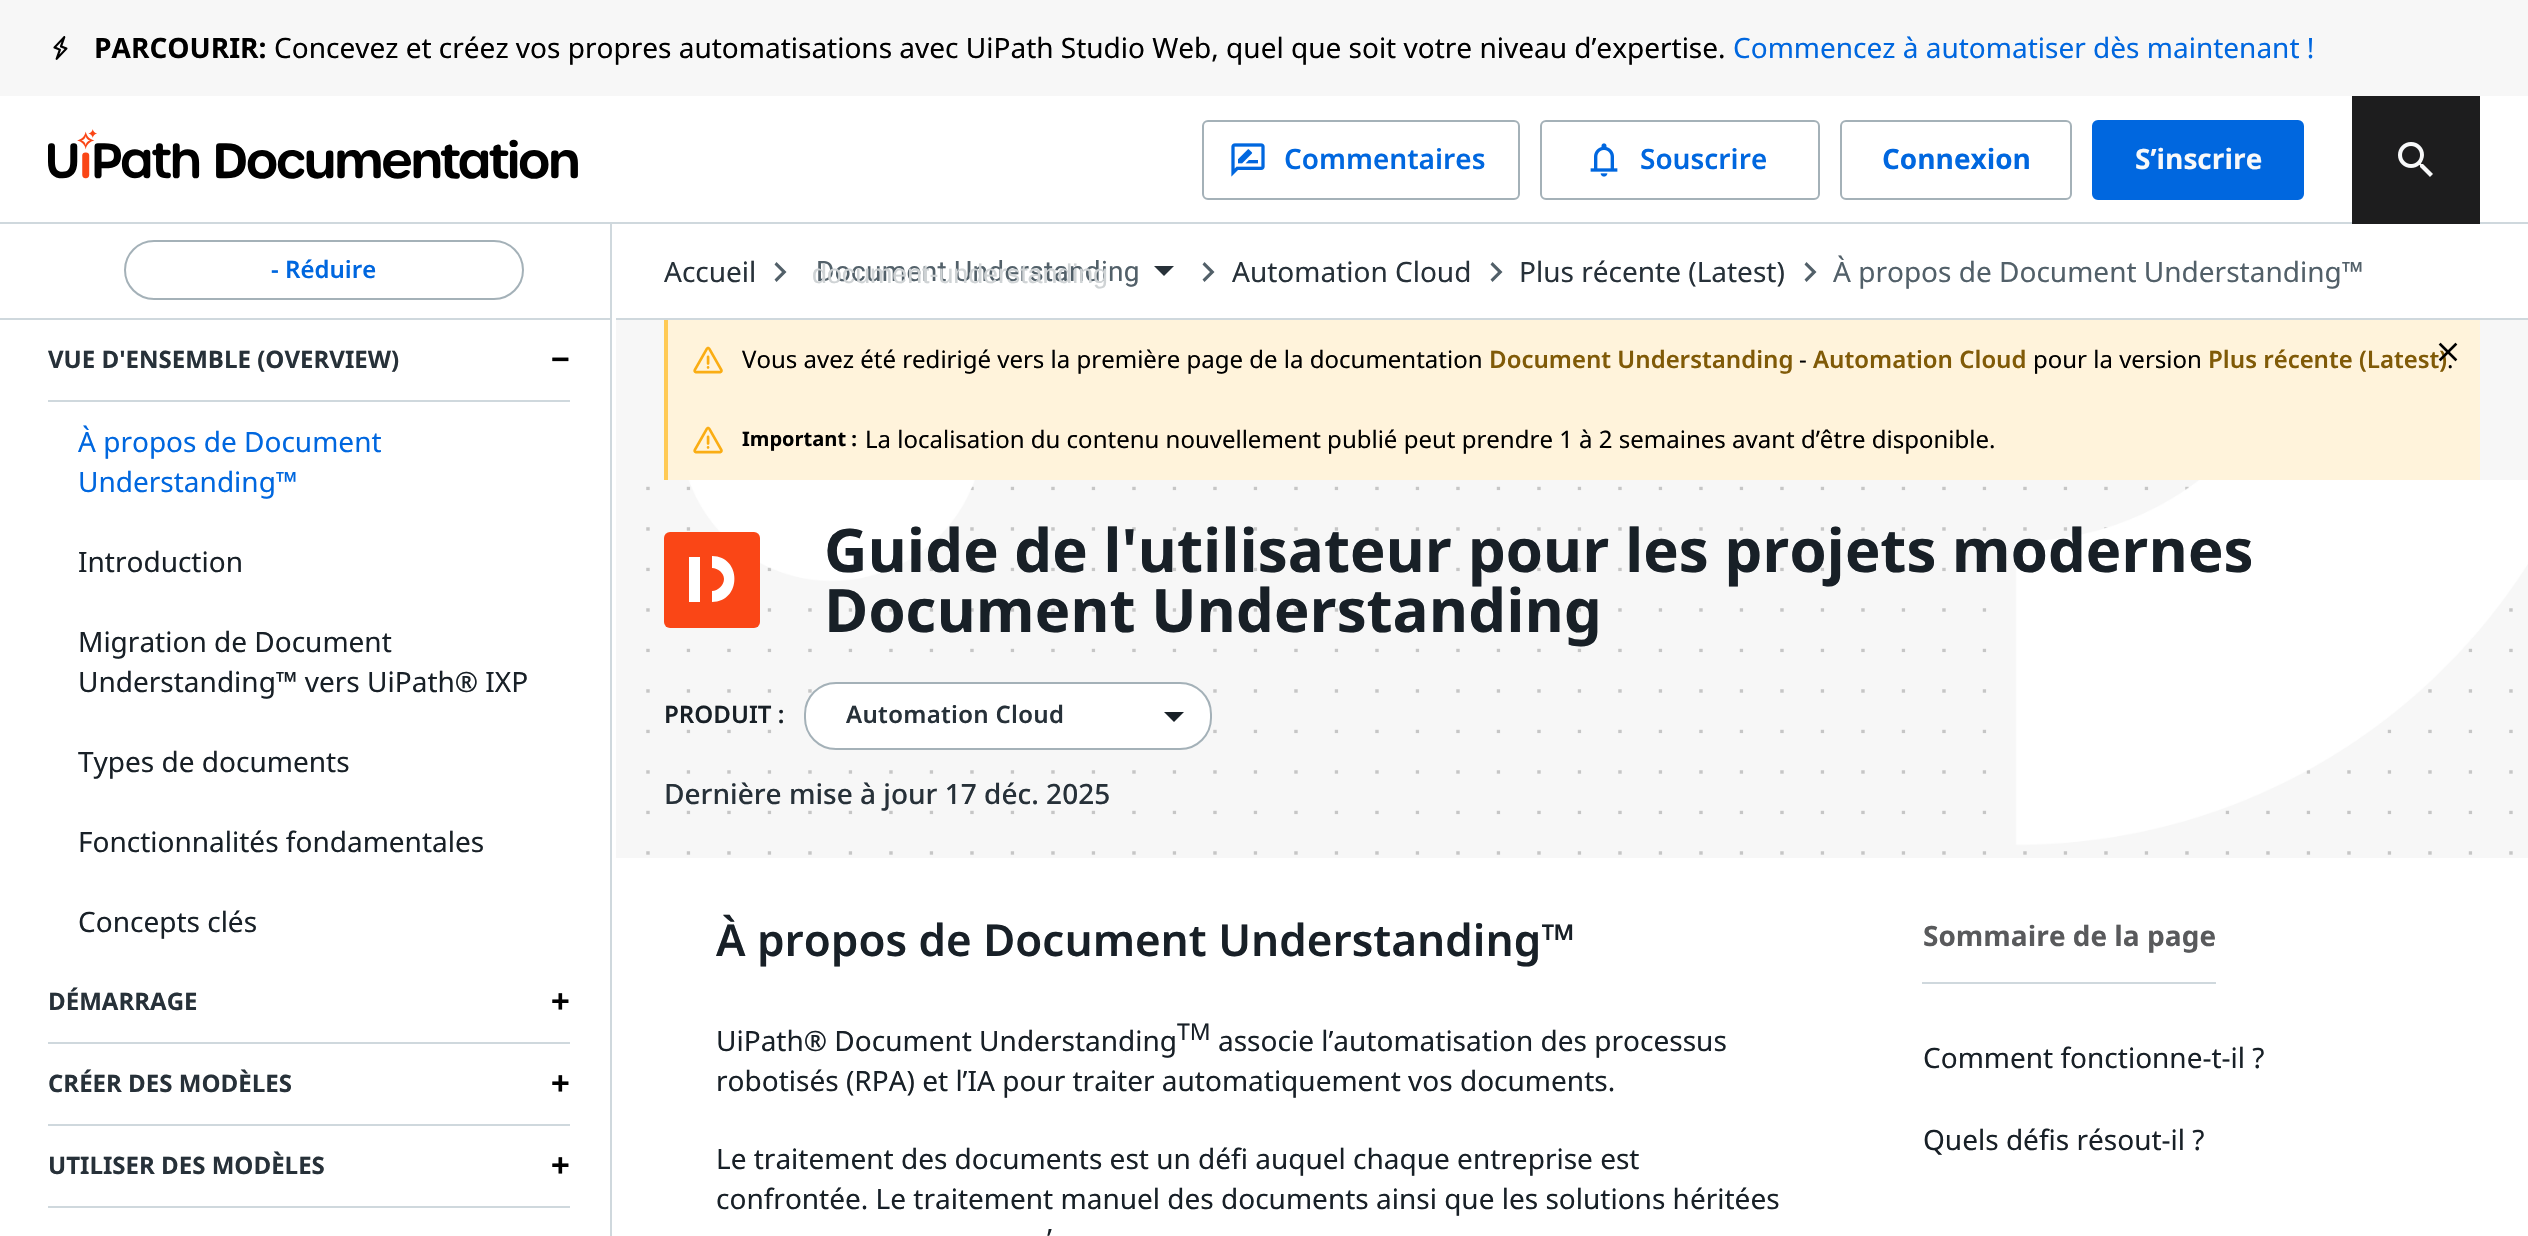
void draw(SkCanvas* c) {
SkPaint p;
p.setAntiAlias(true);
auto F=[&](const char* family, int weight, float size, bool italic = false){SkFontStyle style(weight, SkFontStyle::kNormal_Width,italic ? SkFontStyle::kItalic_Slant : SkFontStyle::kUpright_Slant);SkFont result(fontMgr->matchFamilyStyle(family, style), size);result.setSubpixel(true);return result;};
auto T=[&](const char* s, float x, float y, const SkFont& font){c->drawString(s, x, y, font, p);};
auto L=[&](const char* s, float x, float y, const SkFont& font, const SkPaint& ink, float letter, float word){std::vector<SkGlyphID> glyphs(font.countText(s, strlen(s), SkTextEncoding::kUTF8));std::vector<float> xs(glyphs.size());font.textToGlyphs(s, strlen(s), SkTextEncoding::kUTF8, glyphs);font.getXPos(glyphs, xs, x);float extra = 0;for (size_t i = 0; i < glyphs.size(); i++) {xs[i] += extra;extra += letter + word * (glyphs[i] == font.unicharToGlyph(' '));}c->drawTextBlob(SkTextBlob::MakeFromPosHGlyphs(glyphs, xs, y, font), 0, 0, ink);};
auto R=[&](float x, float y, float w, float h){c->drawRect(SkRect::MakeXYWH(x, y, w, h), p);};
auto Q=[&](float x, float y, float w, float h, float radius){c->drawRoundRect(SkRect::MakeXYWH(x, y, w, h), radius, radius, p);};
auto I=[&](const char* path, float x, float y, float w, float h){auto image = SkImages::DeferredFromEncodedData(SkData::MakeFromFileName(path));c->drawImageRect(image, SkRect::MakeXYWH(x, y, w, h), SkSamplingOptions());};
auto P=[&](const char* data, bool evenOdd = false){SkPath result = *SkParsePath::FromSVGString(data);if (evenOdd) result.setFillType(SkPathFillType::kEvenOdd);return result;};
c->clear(0xffffffff);
p.setColor(0xfff7f7f7);
R(0,0,2528,96);
I("1.png",53,36,15,24);
auto f1 = F("Noto Sans",700,28);
p.setColor(0xff000000);
T("PARCOURIR:",94,58,f1);
auto f2 = F("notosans",400,28);
T("Concevez et créez vos propres automatisations avec UiPath Studio Web, quel que soit votre niveau d’expertise.",274,58,f2);
p.setColor(0xff0067df);
T("Commencez à automatiser dès maintenant !",1733,58,f2);
p.setColor(0xffcfd8dd);
R(0,222,2528,2);
I("2.png",48,129,530,50);
p.setStroke(true);
p.setStrokeWidth(2);
p.setColor(0xffa4b1b8);
c->drawRoundRect(SkRect::MakeXYWH(1203,121,316,78),5,5,p);
I("3.png",1231,143,34,34);
auto f3 = F("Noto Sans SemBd",600,28);
p.setStroke(false);
p.setColor(0xff0067df);
T("Commentaires",1284,169,f3);
p.setStroke(true);
p.setColor(0xffa4b1b8);
c->drawRoundRect(SkRect::MakeXYWH(1541,121,278,78),5,5,p);
I("4.png",1590,143,28,34);
p.setStroke(false);
p.setColor(0xff0067df);
T("Souscrire",1640,169,f3);
p.setStroke(true);
p.setColor(0xffa4b1b8);
c->drawRoundRect(SkRect::MakeXYWH(1841,121,230,78),5,5,p);
p.setStroke(false);
p.setColor(0xff0067df);
T("Connexion",1882,169,f1);
c->drawRoundRect(SkRect::MakeXYWH(2093,121,210,78),5,5,p);
p.setStroke(true);
c->drawRoundRect(SkRect::MakeXYWH(2093,121,210,78),5,5,p);
p.setStroke(false);
p.setColor(0xfff8f9fa);
T("S’inscrire",2135,169,f1);
p.setColor(0xff1d1d1e);
R(2352,96,128,128);
I("5.png",2398,142,35,35);
p.setColor(0xffcfd8dd);
R(610,224,2,1012);
R(0,318,612,2);
p.setStroke(true);
p.setColor(0xffa4b1b8);
c->drawRoundRect(SkRect::MakeXYWH(125,241,398,58),29,29,p);
auto f4 = F("Noto Sans SemBd",600,24);
p.setStroke(false);
p.setColor(0xff0067df);
T("- Réduire",271,278,f4);
p.setColor(0xffcfd8dd);
R(48,400,522,2);
auto f5 = F("Noto Sans",700,24);
p.setColor(0xff273139);
T("VUE D'ENSEMBLE (OVERVIEW)",48,368,f5);
auto f6 = F("Liberation Sans",700,32);
p.setColor(0xff000000);
T("−",551,370,f6);
p.setColor(0xff0067df);
T("À propos de Document",78,452,f2);
T("Understanding™",78,492,f2);
p.setColor(0xff182027);
T("Introduction",78,572,f2);
T("Migration de Document",78,652,f2);
T("Understanding™ vers UiPath® IXP",78,692,f2);
T("Types de documents",78,772,f2);
T("Fonctionnalités fondamentales",78,852,f2);
T("Concepts clés",78,932,f2);
p.setColor(0xffcfd8dd);
R(48,1042,522,2);
p.setColor(0xff273139);
T("DÉMARRAGE",48,1010,f5);
p.setColor(0xff000000);
T("+",551,1012,f6);
p.setColor(0xffcfd8dd);
R(48,1124,522,2);
p.setColor(0xff273139);
T("CRÉER DES MODÈLES",48,1092,f5);
p.setColor(0xff000000);
T("+",551,1094,f6);
p.setColor(0xffcfd8dd);
R(48,1206,522,2);
p.setColor(0xff273139);
T("UTILISER DES MODÈLES",48,1174,f5);
p.setColor(0xff000000);
T("+",551,1176,f6);
p.setColor(0xffcfd8dd);
R(616,318,1912,2);
p.setColor(0xff273139);
T("Accueil",664,282,f2);
p.setColor(0xff526069);
c->drawPath(P("M776.5 262l-2 2.5l7.5 7.5l-7.5 7.5l2 2.5l10-10z"),p);
auto f7 = F("Roboto",400,28);
L("Document Understanding",816,281,f7,p,.3,0);
auto f8 = F("Liberation Sans",400,26.75);
p.setColor(0xffcfd3d5);
T("document-understanding",812,283,f8);
p.setColor(0xff273139);
c->drawPath(P("M1154 266l10 10l10-10z"),p);
p.setColor(0xff526069);
c->drawPath(P("M1204.5 262l-2 2.5l7.5 7.5l-7.5 7.5l2 2.5l10-10z"),p);
p.setColor(0xff273139);
T("Automation Cloud",1232,282,f2);
p.setColor(0xff526069);
c->drawPath(P("M1492.5 262l-2 2.5l7.5 7.5l-7.5 7.5l2 2.5l10-10z"),p);
p.setColor(0xff273139);
T("Plus récente (Latest)",1519,282,f2);
p.setColor(0xff526069);
c->drawPath(P("M1806.5 262l-2 2.5l7.5 7.5l-7.5 7.5l2 2.5l10-10z"),p);
T("À propos de Document Understanding™",1833,282,f2);
p.setColor(0xfff7f7f7);
R(616,320,1912,160);
p.setColor(0xfffff3db);
R(668,320,1812,160);
p.setColor(0xffffca55);
R(664,320,4,160);
I("6.png",693,346,30,28);
p.setColor(0xff805a07);
T("Plus récente (Latest)",2208,368,f4);
I("7.png",2438,342,20,20);
auto f9 = F("notosans",400,24);
p.setColor(0xff000000);
T("Vous avez été redirigé vers la première page de la documentation",742,368,f9);
p.setColor(0xff805a07);
T("Document Understanding",1489,368,f4);
p.setColor(0xff000000);
T("-",1799,368,f9);
p.setColor(0xff805a07);
T("Automation Cloud",1813,368,f4);
p.setColor(0xff000000);
T("pour la version",2033,368,f9);
T(".",2447,368,f9);
I("6.png",693,426,30,28);
auto f10 = F("Noto Sans",700,20);
T("Important :",742,446,f10);
T("La localisation du contenu nouvellement publié peut prendre 1 à 2 semaines avant d’être disponible.",865,448,f9);
I("8.png",616,480,1912,378);
p.setColor(0xfffa4616);
Q(664,532,96,96,6);
p.setColor(0xffffffff);
R(689,557,11,45);
c->drawPath(P("M724 579c0-6-6-11-12-11v-12c30 0 30 46 0 46v-11c6 0 12-6 12-12z"),p);
auto f11 = F("Noto Sans",700,60);
p.setColor(0xff182027);
T("Guide de l'utilisateur pour les projets modernes",824,572,f11);
T("Document Understanding",824,632,f11);
T("PRODUIT :",664,723,f4);
p.setColor(0xffffffff);
c->drawRoundRect(SkRect::MakeXYWH(805,683,406,66),31,31,p);
p.setStroke(true);
p.setColor(0xffa4b1b8);
c->drawRoundRect(SkRect::MakeXYWH(805,683,406,66),31,31,p);
p.setStroke(false);
p.setColor(0xff273139);
L("Automation Cloud",846,723,f4,p,.3,0);
p.setColor(0xff182027);
c->drawPath(P("M1164 712l10 10l10-10z"),p);
auto f12 = F("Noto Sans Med",500,28);
p.setColor(0xff273139);
T("Dernière mise à jour 17 déc. 2025",664,804,f12);
auto f13 = F("Noto Sans SemBd",600,44);
p.setColor(0xff182027);
T("À propos de Document Understanding™",716,956,f13);
T("UiPath® Document Understanding",716,1051,f2);
auto f14 = F("notosans",400,23);
T("TM",1177,1040,f14);
T("associe l’automatisation des processus",1218,1051,f2);
T("robotisés (RPA) et l’IA pour traiter automatiquement vos documents.",716,1091,f2);
T("Le traitement des documents est un défi auquel chaque entreprise est",716,1169,f2);
T("confrontée. Le traitement manuel des documents ainsi que les solutions héritées",716,1209,f2);
T("’",1047,1249,f2);
p.setColor(0xffcfd8dd);
R(1922,982,294,2);
p.setColor(0xff595a5c);
T("Sommaire de la page",1923,946,f1);
p.setColor(0xff182027);
T("Comment fonctionne-t-il ?",1923,1068,f2);
T("Quels défis résout-il ?",1923,1150,f2);
}
